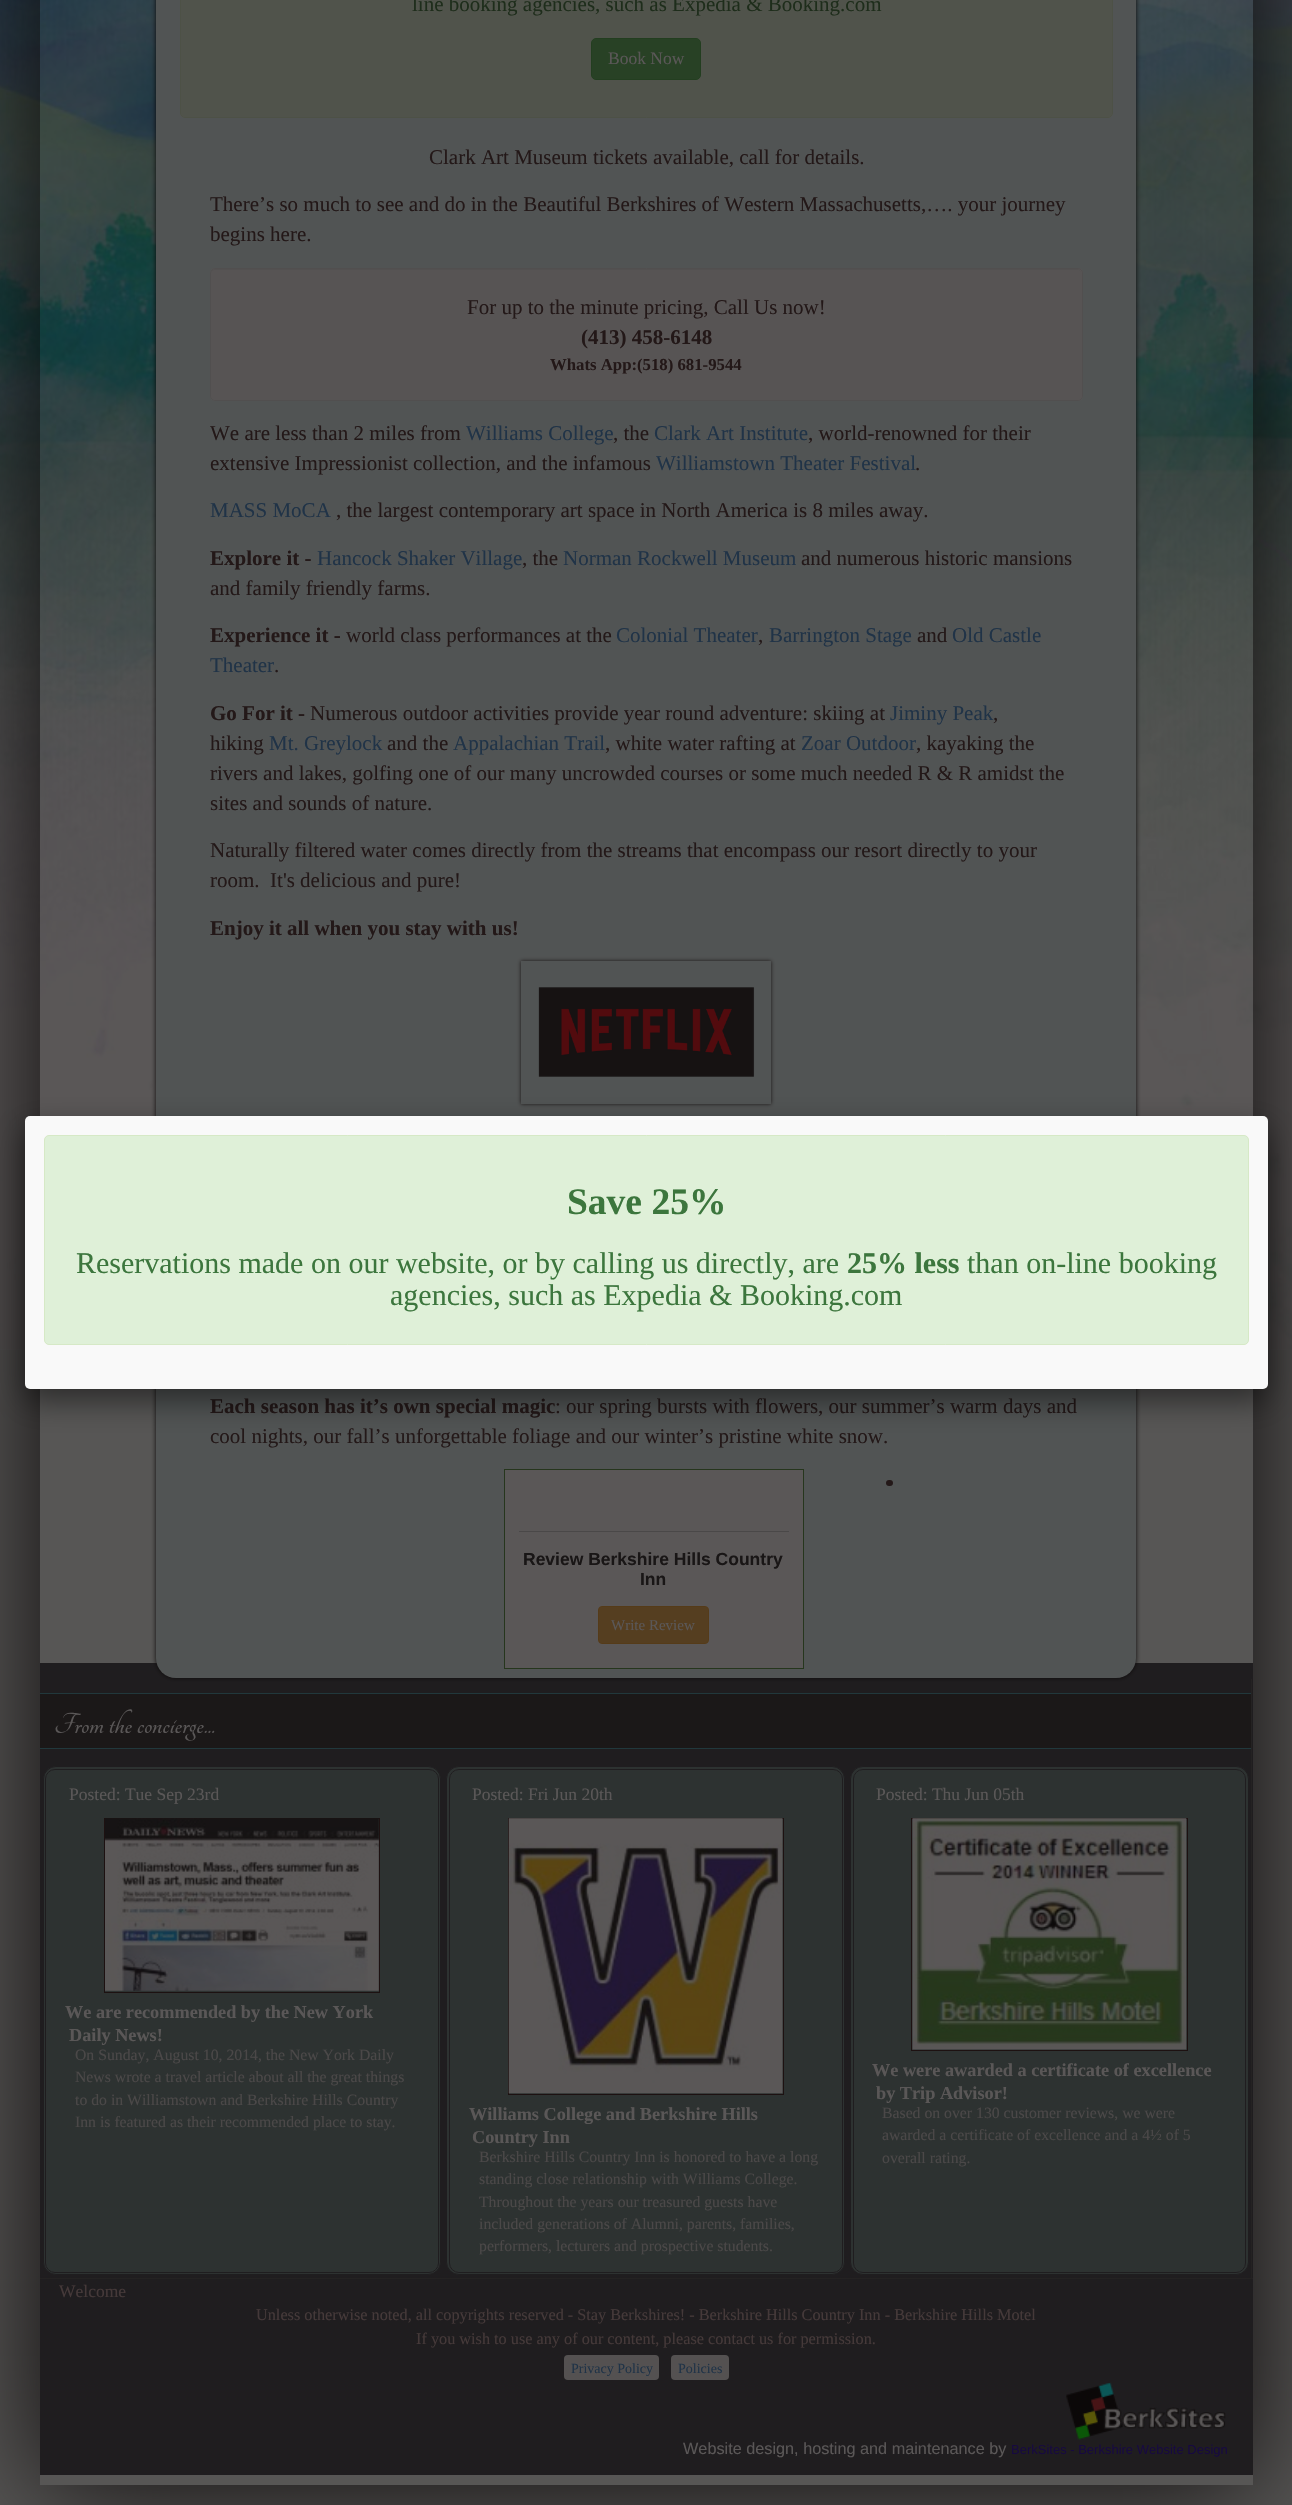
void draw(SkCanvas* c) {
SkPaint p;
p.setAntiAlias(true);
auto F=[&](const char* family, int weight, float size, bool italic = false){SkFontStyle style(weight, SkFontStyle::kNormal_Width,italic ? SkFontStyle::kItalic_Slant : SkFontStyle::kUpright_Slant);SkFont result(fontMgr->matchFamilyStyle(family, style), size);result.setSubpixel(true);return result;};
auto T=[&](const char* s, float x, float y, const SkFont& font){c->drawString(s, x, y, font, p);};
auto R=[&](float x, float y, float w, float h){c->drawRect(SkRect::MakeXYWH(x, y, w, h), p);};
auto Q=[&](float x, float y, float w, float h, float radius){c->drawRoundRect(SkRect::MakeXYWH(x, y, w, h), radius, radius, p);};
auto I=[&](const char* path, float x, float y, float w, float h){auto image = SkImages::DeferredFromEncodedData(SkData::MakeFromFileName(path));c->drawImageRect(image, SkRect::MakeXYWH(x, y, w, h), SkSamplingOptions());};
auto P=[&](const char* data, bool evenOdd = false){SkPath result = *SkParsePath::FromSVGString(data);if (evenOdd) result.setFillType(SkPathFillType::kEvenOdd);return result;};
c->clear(0xff575655);
I("1.png",0,0,1292,1350);
c->save();
c->clipPath(P("M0 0h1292v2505h-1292zm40-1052h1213v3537h-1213z",true),true);
p.setColor(0xff0c0909);
p.setMaskFilter(SkMaskFilter::MakeBlur(kNormal_SkBlurStyle, 58));
c->drawRect(SkRect::MakeXYWH(38,-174,1217,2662),p);
p.setMaskFilter(nullptr);
c->restore();
p.setColor(0xff1f1d1f);
R(40,1663,1213,812);
p.setColor(0xff0b0808);
p.setMaskFilter(SkMaskFilter::MakeBlur(kNormal_SkBlurStyle, 2.5));
c->drawRoundRect(SkRect::MakeXYWH(156,-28,980,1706),20,20,p);
p.setMaskFilter(nullptr);
p.setColor(0xff515454);
Q(156,-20,980,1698,20);
p.setColor(0xff50534b);
c->drawRoundRect(SkRect::MakeXYWH(180.5,-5.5,932,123),4.5,4.5,p);
p.setStroke(true);
p.setStrokeWidth(1);
p.setColor(0xff4d5146);
c->drawRoundRect(SkRect::MakeXYWH(180.5,-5.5,932,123),4.5,4.5,p);
auto f1 = F("Liberation Serif",400,21);
p.setStroke(false);
p.setColor(0xff1e2d1b);
T("line booking agencies, such as Expedia & Booking.com",412,11,f1);
p.setColor(0xff284125);
c->drawRoundRect(SkRect::MakeXYWH(591.5,38.5,109,41),4.5,4.5,p);
p.setStroke(true);
p.setColor(0xff233e20);
c->drawRoundRect(SkRect::MakeXYWH(591.5,38.5,109,41),4.5,4.5,p);
auto f2 = F("Liberation Serif",400,17.5);
p.setStroke(false);
p.setColor(0xff5a5757);
T("Book Now",608,64,f2);
p.setColor(0xff231818);
T("Clark Art Museum tickets available, call for details.",429,164,f1);
T("There’s so much to see and do in the Beautiful Berkshires of Western Massachusetts,…. your journey",210,211,f1);
T("begins here.",210,241,f1);
p.setColor(0xff575454);
Q(210,268,873,133,5);
p.setColor(0xff535151);
c->drawPath(P("M215 270h863c2 0 3 2 3 4c0-3-1-5-4-5h-862c-3 0-4 2-4 5c0-2 2-4 4-4z"),p);
p.setStroke(true);
p.setColor(0xff514f4f);
c->drawRoundRect(SkRect::MakeXYWH(210.5,268.5,872,132),4.5,4.5,p);
p.setStroke(false);
p.setColor(0xff231818);
T("For up to the minute pricing, Call Us now!",467,314,f1);
auto f3 = F("Liberation Serif",700,21);
T("(413) 458-6148",581,344,f3);
auto f4 = F("Liberation Serif",700,16.75);
T("Whats App:(518) 681-9544",550,370,f4);
T("We are less than 2 miles from",210,440,f1);
p.setColor(0xff203347);
T("Williams College",466,440,f1);
p.setColor(0xff231818);
T(", the",613,440,f1);
p.setColor(0xff203347);
T("Clark Art Institute",654,440,f1);
p.setColor(0xff231818);
T(", world-renowned for their",808,440,f1);
T("extensive Impressionist collection, and the infamous",210,470,f1);
p.setColor(0xff203347);
T("Williamstown Theater Festival",656,470,f1);
p.setColor(0xff231818);
T(".",915,470,f1);
p.setColor(0xff203347);
T("MASS MoCA",210,517,f1);
p.setColor(0xff231818);
T(", the largest contemporary art space in North America is 8 miles away.",336,517,f1);
T("Explore it -",210,565,f3);
p.setColor(0xff203347);
T("Hancock Shaker Village",317,565,f1);
p.setColor(0xff231818);
T(", the",522,565,f1);
p.setColor(0xff203347);
T("Norman Rockwell Museum",563,565,f1);
p.setColor(0xff231818);
T("and numerous historic mansions",801,565,f1);
T("and family friendly farms.",210,595,f1);
T("Experience it -",210,642,f3);
T("world class performances at the",346,642,f1);
p.setColor(0xff203347);
T("Colonial Theater",616,642,f1);
p.setColor(0xff231818);
T(",",758,642,f1);
p.setColor(0xff203347);
T("Barrington Stage",769,642,f1);
p.setColor(0xff231818);
T("and",917,642,f1);
p.setColor(0xff203347);
T("Old Castle",952,642,f1);
T("Theater",210,672,f1);
p.setColor(0xff231818);
T(".",274,672,f1);
T("Go For it -",210,720,f3);
T("Numerous outdoor activities provide year round adventure: skiing at",310,720,f1);
p.setColor(0xff203347);
T("Jiminy Peak",890,720,f1);
p.setColor(0xff231818);
T(",",993,720,f1);
T("hiking",210,750,f1);
p.setColor(0xff203347);
T("Mt. Greylock",269,750,f1);
p.setColor(0xff231818);
T("and the",387,750,f1);
p.setColor(0xff203347);
T("Appalachian Trail",453,750,f1);
p.setColor(0xff231818);
T(", white water rafting at",605,750,f1);
p.setColor(0xff203347);
T("Zoar Outdoor",801,750,f1);
p.setColor(0xff231818);
T(", kayaking the",916,750,f1);
T("rivers and lakes, golfing one of our many uncrowded courses or some much needed R & R amidst the",210,780,f1);
T("sites and sounds of nature.",210,810,f1);
T("Naturally filtered water comes directly from the streams that encompass our resort directly to your",210,857,f1);
T("room.  It's delicious and pure!",210,887,f1);
T("Enjoy it all when you stay with us!",210,935,f3);
c->save();
c->clipPath(P("M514 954h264v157h-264zm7 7h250v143h-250z",true),true);
p.setColor(0xff191313);
p.setMaskFilter(SkMaskFilter::MakeBlur(kNormal_SkBlurStyle, 2));
c->drawRect(SkRect::MakeXYWH(521,961,250,143),p);
p.setMaskFilter(nullptr);
c->restore();
I("2.png",538,987,217,90);
p.setColor(0xff231818);
T("Each season has it’s own special magic",210,1413,f3);
T(": our spring bursts with flowers, our summer’s warm days and",555,1413,f1);
T("cool nights, our fall’s unforgettable foliage and our winter’s pristine white snow.",210,1443,f1);
Q(886,1480,7,6,3);
p.setColor(0xff5a5757);
c->drawRect(SkRect::MakeXYWH(504.5,1469.5,299,199),p);
p.setStroke(true);
p.setColor(0xff26361d);
c->drawRect(SkRect::MakeXYWH(504.5,1469.5,299,199),p);
p.setStroke(false);
p.setColor(0xff4a4848);
R(519,1531,270,1);
auto f5 = F("Liberation Sans",700,17.5);
p.setColor(0xff191616);
T("Review Berkshire Hills Country",523,1565,f5);
T("Inn",640,1585,f5);
p.setColor(0xff553e20);
c->drawRoundRect(SkRect::MakeXYWH(598.5,1606.5,110,37),3.5,3.5,p);
p.setStroke(true);
p.setColor(0xff553b19);
c->drawRoundRect(SkRect::MakeXYWH(598.5,1606.5,110,37),3.5,3.5,p);
auto f6 = F("Liberation Serif",400,15);
p.setStroke(false);
p.setColor(0xff5a5757);
T("Write Review",611,1630,f6);
p.setColor(0xff242222);
R(1251,1679,1,600);
R(40,2278,1213,1);
p.setColor(0xff1b1818);
R(40,1694,1211,54);
p.setColor(0xff21383c);
R(40,1693,1211,1);
R(40,1748,1211,1);
auto f7 = F("Tangerine",700,31.5);
p.setColor(0xff5a5757);
T("From the concierge...",54,1733,f7);
p.setColor(0xff2d3231);
c->drawRoundRect(SkRect::MakeXYWH(43.5,1766.5,397,508),12.5,12.5,p);
p.setStroke(true);
p.setColor(0xff1f1d1f);
c->drawRoundRect(SkRect::MakeXYWH(43.5,1766.5,397,508),12.5,12.5,p);
c->drawRoundRect(SkRect::MakeXYWH(45.5,1769.5,393,503),9.5,9.5,p);
p.setStroke(false);
p.setColor(0xff5a5757);
T("Posted: Tue Sep 23rd",69,1800,f2);
p.setStroke(true);
p.setColor(0xff1d1111);
c->drawRect(SkRect::MakeXYWH(104.5,1818.5,275,174),p);
I("3.png",105,1818,274,173);
auto f8 = F("Liberation Serif",700,18.25);
p.setStroke(false);
p.setColor(0xff5a5757);
T("We are recommended by the New York",65,2018,f8);
T("Daily News!",69,2041,f8);
auto f9 = F("Liberation Serif",400,15.75);
p.setColor(0xff4b4848);
T("On Sunday, August 10, 2014, the New York Daily",75,2060,f9);
T("News wrote a travel article about all the great things",75,2082,f9);
T("to do in Williamstown and Berkshire Hills Country",75,2105,f9);
T("Inn is featured as their recommended place to stay.",75,2127,f9);
p.setColor(0xff2d3231);
c->drawRoundRect(SkRect::MakeXYWH(446.5,1766.5,398,508),12.5,12.5,p);
p.setStroke(true);
p.setColor(0xff1f1d1f);
c->drawRoundRect(SkRect::MakeXYWH(446.5,1766.5,398,508),12.5,12.5,p);
c->drawRoundRect(SkRect::MakeXYWH(449.5,1769.5,393,503),9.5,9.5,p);
p.setStroke(false);
p.setColor(0xff5a5757);
T("Posted: Fri Jun 20th",472,1800,f2);
p.setStroke(true);
p.setColor(0xff1d1111);
c->drawRect(SkRect::MakeXYWH(508.5,1818.5,275,276),p);
I("4.png",508,1818,275,276);
p.setStroke(false);
p.setColor(0xff5a5757);
T("Williams College and Berkshire Hills",469,2120,f8);
T("Country Inn",472,2143,f8);
p.setColor(0xff4b4848);
T("Berkshire Hills Country Inn is honored to have a long",479,2162,f9);
T("standing close relationship with Williams College.",479,2184,f9);
T("Throughout the years our treasured guests have",479,2207,f9);
T("included generations of Alumni, parents, families,",479,2229,f9);
T("performers, lecturers and prospective students.",479,2251,f9);
p.setColor(0xff2d3231);
c->drawRoundRect(SkRect::MakeXYWH(850.5,1766.5,398,508),12.5,12.5,p);
p.setStroke(true);
p.setColor(0xff1f1d1f);
c->drawRoundRect(SkRect::MakeXYWH(850.5,1766.5,398,508),12.5,12.5,p);
c->drawRoundRect(SkRect::MakeXYWH(853.5,1769.5,392,503),9.5,9.5,p);
p.setStroke(false);
p.setColor(0xff5a5757);
T("Posted: Thu Jun 05th",876,1800,f2);
p.setStroke(true);
p.setColor(0xff1d1111);
c->drawRect(SkRect::MakeXYWH(911.5,1818.5,276,232),p);
I("5.png",912,1818,275,232);
p.setStroke(false);
p.setColor(0xff5a5757);
T("We were awarded a certificate of excellence",872,2076,f8);
T("by Trip Advisor!",876,2099,f8);
p.setColor(0xff4b4848);
T("Based on over 130 customer reviews, we were",882,2118,f9);
T("awarded a certificate of excellence and a 4½ of 5",882,2140,f9);
T("overall rating.",882,2163,f9);
p.setColor(0xff453939);
T("Welcome",59,2297,f2);
auto f10 = F("Liberation Serif",400,16.25);
T("Unless otherwise noted, all copyrights reserved - Stay Berkshires! - Berkshire Hills Country Inn - Berkshire Hills Motel",256,2320,f10);
T("If you wish to use any of our content, please contact us for permission.",416,2344,f10);
p.setColor(0xff545151);
Q(564,2355,95,25,4);
auto f11 = F("Liberation Serif",400,14);
p.setColor(0xff203347);
T("Privacy Policy",571,2373,f11);
p.setColor(0xff545151);
Q(671,2355,58,25,4);
p.setColor(0xff203347);
T("Policies",678,2373,f11);
I("6.png",1066,2382,160,58);
auto f12 = F("Liberation Sans",400,16.25);
p.setColor(0xff5a5757);
T("Website design, hosting and maintenance by",683,2454,f12);
auto f13 = F("Liberation Sans",400,13);
p.setColor(0xff16093f);
T("BerkSites - Berkshire Website Design",1011,2454,f13);
p.setColor(0x80000000);
p.setMaskFilter(SkMaskFilter::MakeBlur(kNormal_SkBlurStyle, 15.5));
c->drawRoundRect(SkRect::MakeXYWH(25,1129,1243,272),5,5,p);
p.setMaskFilter(nullptr);
p.setColor(0xfff9f9f9);
Q(25,1116,1243,273,5);
p.setColor(0xffdff0d8);
c->drawRoundRect(SkRect::MakeXYWH(44.5,1135.5,1204,209),4.5,4.5,p);
p.setStroke(true);
p.setColor(0xffd6e9c6);
c->drawRoundRect(SkRect::MakeXYWH(44.5,1135.5,1204,209),4.5,4.5,p);
auto f14 = F("Liberation Serif",700,37.5);
p.setStroke(false);
p.setColor(0xff3c763d);
T("Save 25%",567,1214,f14);
auto f15 = F("Liberation Serif",400,30);
T("Reservations made on our website, or by calling us directly, are",76,1273,f15);
auto f16 = F("Liberation Serif",700,30);
T("25% less",847,1273,f16);
T("than on-line booking",967,1273,f15);
T("agencies, such as Expedia & Booking.com",390,1305,f15);
}
